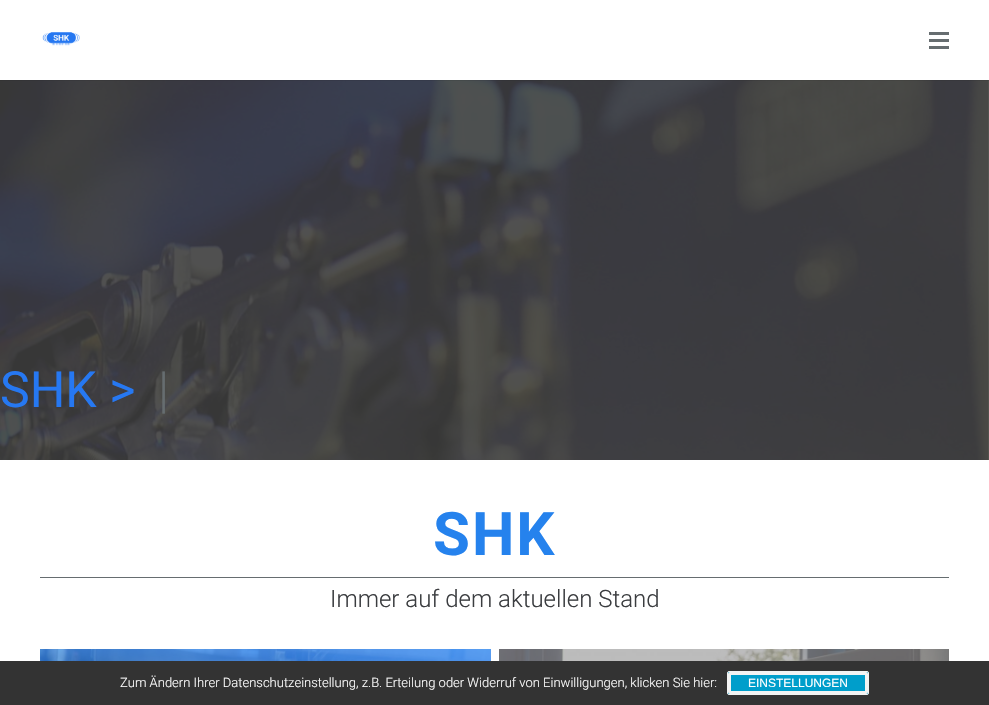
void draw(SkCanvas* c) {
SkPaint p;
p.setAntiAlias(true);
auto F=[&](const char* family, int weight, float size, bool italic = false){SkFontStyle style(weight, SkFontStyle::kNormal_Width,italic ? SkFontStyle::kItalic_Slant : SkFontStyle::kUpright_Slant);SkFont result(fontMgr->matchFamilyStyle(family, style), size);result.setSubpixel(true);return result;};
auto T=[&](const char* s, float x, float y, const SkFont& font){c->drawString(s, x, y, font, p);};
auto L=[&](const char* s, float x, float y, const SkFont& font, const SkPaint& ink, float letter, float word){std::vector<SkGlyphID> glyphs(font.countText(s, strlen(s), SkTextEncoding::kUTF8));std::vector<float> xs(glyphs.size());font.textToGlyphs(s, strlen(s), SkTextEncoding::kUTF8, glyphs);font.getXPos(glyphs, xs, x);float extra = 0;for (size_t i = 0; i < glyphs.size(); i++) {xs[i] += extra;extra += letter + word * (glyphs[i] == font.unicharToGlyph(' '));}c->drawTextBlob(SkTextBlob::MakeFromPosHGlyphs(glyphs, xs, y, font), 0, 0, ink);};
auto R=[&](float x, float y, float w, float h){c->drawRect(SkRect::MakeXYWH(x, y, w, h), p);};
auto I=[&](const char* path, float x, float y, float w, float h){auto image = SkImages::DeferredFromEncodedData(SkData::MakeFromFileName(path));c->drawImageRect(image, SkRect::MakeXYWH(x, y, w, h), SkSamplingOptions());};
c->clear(0xffffffff);
I("2.png",0,80,989,380);
p.setColor(0x14000000);
R(0,80,989,1);
I("1.png",42,32,38,14);
p.setColor(0xff666d70);
R(929,39,20,3);
R(929,32,20,3);
R(929,46,20,3);
auto f1 = F("Roboto",400,50);
p.setColor(0xff2678f2);
T("SHK >",0,407,f1);
auto f2 = F("Roboto",300,50);
p.setColor(0xff666d70);
T("|",158,407,f2);
auto f3 = F("Roboto",700,60);
p.setColor(0xff2582ed);
L("SHK",433,555,f3,p,2,0);
p.setColor(0xff666d70);
R(40,577,909,1);
auto f4 = F("Roboto",300,24);
p.setColor(0xff3b3d40);
T("Immer auf dem aktuellen Stand",330,607,f4);
p.setColor(0xff1579eb);
R(40,649,451,12);
I("3.png",40,649,451,12);
p.setColor(0xff999999);
R(499,649,450,12);
I("4.png",499,649,450,12);
p.setColor(0xff333333);
R(0,661,989,44);
auto f5 = F("Roboto",300,13);
p.setColor(0xffffffff);
T("Zum Ändern Ihrer Datenschutzeinstellung, z.B. Erteilung oder Widerruf von Einwilligungen, klicken Sie hier:",120,687,f5);
p.setColor(0xff009ecb);
c->drawRoundRect(SkRect::MakeXYWH(727.5,671.5,141,23),1.5,1.5,p);
p.setStroke(true);
p.setStrokeWidth(1);
p.setColor(0xfff3f3f3);
c->drawRoundRect(SkRect::MakeXYWH(727.5,671.5,141,23),1.5,1.5,p);
p.setStrokeWidth(3);
c->drawRoundRect(SkRect::MakeXYWH(729.5,673.5,137,19),.5,.5,p);
auto f6 = F("Liberation Sans",400,12);
p.setStroke(false);
p.setColor(0xffffffff);
T("EINSTELLUNGEN",748,687,f6);
}
